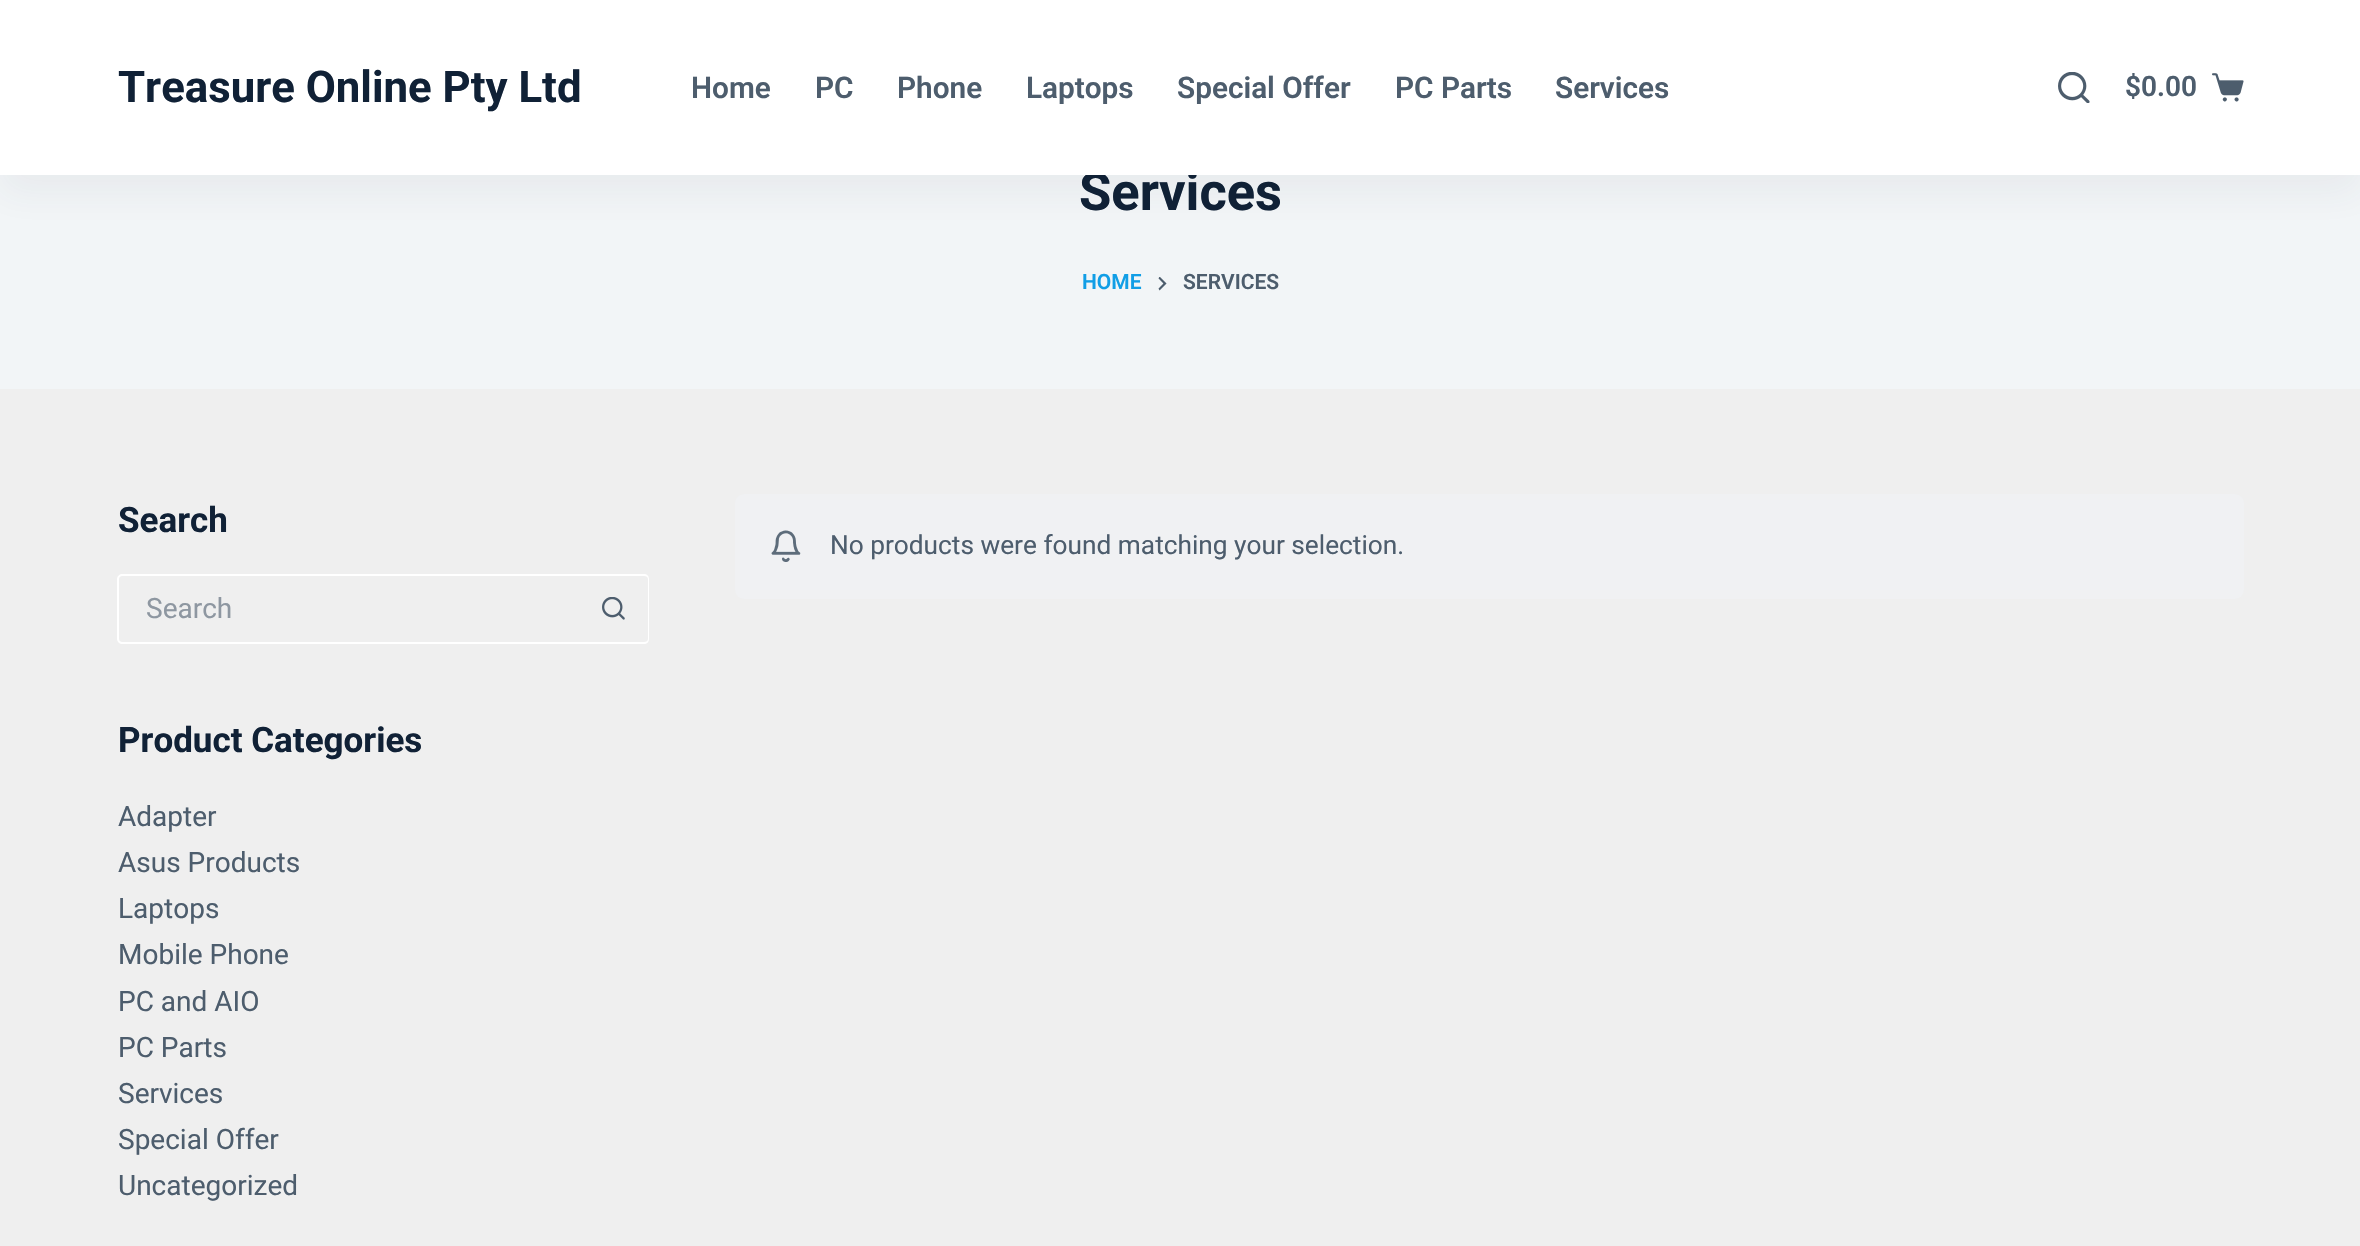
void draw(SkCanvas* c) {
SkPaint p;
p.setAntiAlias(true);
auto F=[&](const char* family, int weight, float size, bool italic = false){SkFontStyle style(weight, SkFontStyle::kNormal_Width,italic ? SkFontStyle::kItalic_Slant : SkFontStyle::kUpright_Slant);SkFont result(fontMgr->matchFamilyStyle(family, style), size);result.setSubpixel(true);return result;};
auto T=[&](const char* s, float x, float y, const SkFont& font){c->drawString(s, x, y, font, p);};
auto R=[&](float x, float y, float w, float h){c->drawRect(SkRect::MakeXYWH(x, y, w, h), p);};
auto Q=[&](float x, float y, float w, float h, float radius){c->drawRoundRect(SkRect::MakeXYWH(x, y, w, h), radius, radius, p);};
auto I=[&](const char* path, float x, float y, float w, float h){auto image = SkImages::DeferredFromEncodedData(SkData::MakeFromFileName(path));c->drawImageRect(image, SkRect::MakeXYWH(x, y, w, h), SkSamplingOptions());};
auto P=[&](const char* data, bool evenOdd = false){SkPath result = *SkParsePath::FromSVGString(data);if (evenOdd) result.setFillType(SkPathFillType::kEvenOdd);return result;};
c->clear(0xffefefef);
p.setColor(0xfff2f5f7);
R(0,175,2360,214);
p.setColor(0x0f2b3d50);
p.setMaskFilter(SkMaskFilter::MakeBlur(kNormal_SkBlurStyle, 17.5));
c->drawRect(SkRect::MakeXYWH(0,18,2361,175),p);
p.setMaskFilter(nullptr);
auto f1 = F("Roboto",700,52.5);
p.setColor(0xff102136);
T("Services",1079,210,f1);
p.setColor(0xffffffff);
R(0,0,2360,175);
auto f2 = F("Roboto",700,43.75);
p.setColor(0xff102136);
T("Treasure Online Pty Ltd",118,102,f2);
auto f3 = F("Roboto",600,29.75);
p.setColor(0xff4d5d6d);
T("Home",691,98,f3);
T("PC",815,98,f3);
T("Phone",897,98,f3);
T("Laptops",1026,98,f3);
T("Special Offer",1177,98,f3);
T("PC Parts",1395,98,f3);
T("Services",1555,98,f3);
I("1.png",2058,72,32,31);
auto f4 = F("Roboto",600,28);
T("$0.00",2125,96,f4);
I("2.png",2212,73,32,29);
auto f5 = F("Roboto",600,21);
p.setColor(0xff119ee6);
T("HOME",1082,289,f5);
I("3.png",1158,277,9,14);
p.setColor(0xff4d5d6d);
T("SERVICES",1183,289,f5);
auto f6 = F("Roboto",700,35);
p.setColor(0xff102136);
T("Search",118,532,f6);
p.setColor(0xffffffff);
c->drawPath(P("M122 574h457v70h-457c-2 0-5-2-5-5v-60c0-3 3-5 5-5zm0 2h457v66h-457c-1 0-3-1-3-3v-60c0-2 2-3 3-3z",true),p);
auto f7 = F("Roboto",400,28);
p.setColor(0xff8e97a1);
T("Search",146,618,f7);
p.setColor(0xffffffff);
c->drawPath(P("M579 574h65c3 0 5 2 5 5v60c0 3-2 5-5 5h-65zm0 2h65c2 0 4 1 4 3v60c0 2-2 3-4 3h-65z",true),p);
I("4.png",602,597,23,23);
p.setColor(0xff102136);
T("Product Categories",118,752,f6);
p.setColor(0xff4d5d6d);
T("Adapter",118,826,f7);
T("Asus Products",118,872,f7);
T("Laptops",118,918,f7);
T("Mobile Phone",118,964,f7);
T("PC and AIO",118,1011,f7);
T("PC Parts",118,1057,f7);
T("Services",118,1103,f7);
T("Special Offer",118,1149,f7);
T("Uncategorized",118,1195,f7);
p.setColor(0xfff0f1f3);
Q(735,494,1509,105,9);
I("5.png",771,530,30,32);
auto f8 = F("Roboto",400,26.25);
p.setColor(0xff4d5d6d);
T("No products were found matching your selection.",830,554,f8);
}
